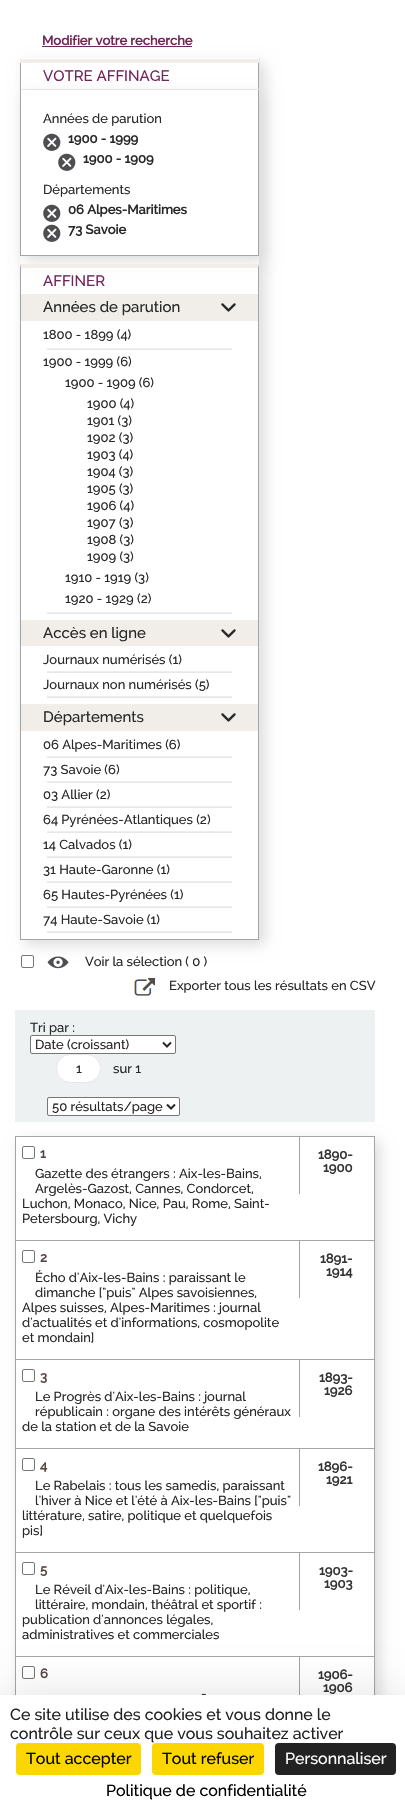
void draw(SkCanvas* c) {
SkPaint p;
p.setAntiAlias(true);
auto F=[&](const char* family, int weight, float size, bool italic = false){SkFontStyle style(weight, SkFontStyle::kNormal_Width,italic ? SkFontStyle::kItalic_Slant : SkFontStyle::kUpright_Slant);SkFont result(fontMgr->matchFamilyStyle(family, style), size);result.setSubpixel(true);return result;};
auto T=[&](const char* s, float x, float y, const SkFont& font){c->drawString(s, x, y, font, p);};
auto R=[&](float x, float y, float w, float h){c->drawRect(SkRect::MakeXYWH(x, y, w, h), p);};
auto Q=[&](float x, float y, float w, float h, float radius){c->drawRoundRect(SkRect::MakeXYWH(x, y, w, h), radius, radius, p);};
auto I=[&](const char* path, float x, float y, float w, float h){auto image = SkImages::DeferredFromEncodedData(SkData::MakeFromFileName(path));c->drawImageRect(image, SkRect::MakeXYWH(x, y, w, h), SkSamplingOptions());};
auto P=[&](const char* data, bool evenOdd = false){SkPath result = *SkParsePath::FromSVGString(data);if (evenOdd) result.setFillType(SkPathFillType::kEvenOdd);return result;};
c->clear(0xffffffff);
auto f1 = F("Raleway",700,13);
p.setColor(0xff73245c);
T("Modifier votre recherche",42,45,f1);
R(42,46,150,1);
c->save();
c->clipPath(P("M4 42h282v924h-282zm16 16h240v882h-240z",true),true);
p.setColor(0xffdddddd);
p.setMaskFilter(SkMaskFilter::MakeBlur(kNormal_SkBlurStyle, 6.5));
c->drawRect(SkRect::MakeXYWH(25,63,240,882),p);
p.setMaskFilter(nullptr);
c->restore();
p.setColor(0xffe7e6e8);
R(259,58,1,882);
p.setColor(0xfff1eee9);
R(20,59,239,4);
p.setColor(0xffa4a4a8);
R(258,63,1,27);
p.setColor(0xffe7e6e8);
R(20,89,239,1);
p.setColor(0xffa4a4a8);
R(20,63,1,27);
c->save();
c->clipPath(P("M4 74h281v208h-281zm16 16h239v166h-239z",true),true);
p.setColor(0xffdddddd);
p.setMaskFilter(SkMaskFilter::MakeBlur(kNormal_SkBlurStyle, 6.5));
c->drawRect(SkRect::MakeXYWH(25,95,239,166),p);
p.setMaskFilter(nullptr);
c->restore();
auto f2 = F("Raleway",500,15);
p.setColor(0xff73245c);
T("VOTRE AFFINAGE",43,81,f2);
p.setColor(0xffa4a4a8);
R(258,90,1,166);
R(20,255,239,1);
R(20,90,1,166);
auto f3 = F("Raleway",500,13);
p.setColor(0xff282828);
T("Années de parution",43,123,f3);
I("1.png",43,133,18,18);
T("1900 - 1999",68,143,f1);
I("1.png",58,153,18,18);
T("1900 - 1909",83,163,f1);
T("Départements",43,194,f3);
I("1.png",43,204,18,18);
T("06 Alpes-Maritimes",68,214,f1);
I("1.png",43,224,18,18);
T("73 Savoie",68,234,f1);
p.setColor(0xffffffff);
R(27,268,231,2);
p.setColor(0xfff1eee9);
c->drawPath(P("M20 264h239l-1 4h-237z"),p);
p.setColor(0xffa4a4a8);
c->drawPath(P("M259 264v676l-1-1v-671z"),p);
R(20,939,239,1);
c->drawPath(P("M20 940v-676l1 4v671z"),p);
p.setColor(0xff73245c);
T("AFFINER",43,286,f2);
p.setColor(0xfff1eee9);
R(21,294,237,27);
p.setColor(0xff282828);
T("Années de parution",43,312,f2);
I("2.png",221,303,15,9);
T("1800 - 1899 (4)",43,339,f3);
p.setColor(0xffe7e6e8);
R(47,349,185,1);
p.setColor(0xffeeeeee);
R(47,348,185,1);
p.setColor(0xff282828);
T("1900 - 1999 (6)",43,366,f3);
T("1900 - 1909 (6)",65,387,f3);
T("1900 (4)",87,408,f3);
T("1901 (3)",87,425,f3);
T("1902 (3)",87,442,f3);
T("1903 (4)",87,459,f3);
T("1904 (3)",87,476,f3);
T("1905 (3)",87,493,f3);
T("1906 (4)",87,510,f3);
T("1907 (3)",87,527,f3);
T("1908 (3)",87,544,f3);
T("1909 (3)",87,561,f3);
T("1910 - 1919 (3)",65,582,f3);
T("1920 - 1929 (2)",65,603,f3);
p.setColor(0xffe7e6e8);
R(47,613,185,1);
p.setColor(0xffeeeeee);
R(47,612,185,1);
p.setColor(0xfff1eee9);
R(21,620,237,26);
p.setColor(0xff282828);
T("Accès en ligne",43,638,f2);
I("2.png",221,629,15,9);
T("Journaux numérisés (1)",43,664,f3);
p.setColor(0xffe7e6e8);
R(47,672,185,1);
p.setColor(0xffeeeeee);
R(47,671,185,1);
p.setColor(0xff282828);
T("Journaux non numérisés (5)",43,689,f3);
p.setColor(0xffe7e6e8);
R(47,697,185,1);
p.setColor(0xffeeeeee);
R(47,696,185,1);
p.setColor(0xfff1eee9);
R(21,704,237,27);
p.setColor(0xff282828);
T("Départements",43,722,f2);
I("2.png",221,713,15,9);
T("06 Alpes-Maritimes (6)",43,749,f3);
p.setColor(0xffe7e6e8);
R(47,757,185,1);
p.setColor(0xffeeeeee);
R(47,756,185,1);
p.setColor(0xff282828);
T("73 Savoie (6)",43,774,f3);
p.setColor(0xffe7e6e8);
R(47,782,185,1);
p.setColor(0xffeeeeee);
R(47,781,185,1);
p.setColor(0xff282828);
T("03 Allier (2)",43,799,f3);
p.setColor(0xffe7e6e8);
R(47,807,185,1);
p.setColor(0xffeeeeee);
R(47,806,185,1);
p.setColor(0xff282828);
T("64 Pyrénées-Atlantiques (2)",43,824,f3);
p.setColor(0xffe7e6e8);
R(47,832,185,1);
p.setColor(0xffeeeeee);
R(47,831,185,1);
p.setColor(0xff282828);
T("14 Calvados (1)",43,849,f3);
p.setColor(0xffe7e6e8);
R(47,857,185,1);
p.setColor(0xffeeeeee);
R(47,856,185,1);
p.setColor(0xff282828);
T("31 Haute-Garonne (1)",43,874,f3);
p.setColor(0xffe7e6e8);
R(47,882,185,1);
p.setColor(0xffeeeeee);
R(47,881,185,1);
p.setColor(0xff282828);
T("65 Hautes-Pyrénées (1)",43,899,f3);
p.setColor(0xffe7e6e8);
R(47,907,185,1);
p.setColor(0xffeeeeee);
R(47,906,185,1);
p.setColor(0xff282828);
T("74 Haute-Savoie (1)",43,924,f3);
p.setColor(0xffe7e6e8);
R(47,932,185,1);
p.setColor(0xffeeeeee);
R(47,931,185,1);
p.setStroke(true);
p.setStrokeWidth(1);
p.setColor(0xff767676);
c->drawRoundRect(SkRect::MakeXYWH(21.5,955.5,12,12),1.5,1.5,p);
I("3.png",47,956,22,13);
p.setStroke(false);
p.setColor(0xff282828);
T("Voir la sélection ( 0 )",85,966,f3);
I("4.png",134,978,21,18);
T("Exporter tous les résultats en CSV",169,990,f3);
p.setColor(0xffedf1f2);
R(15,1010,360,112);
p.setColor(0xff282828);
T("Tri par :",30,1032,f3);
p.setColor(0xffffffff);
c->drawRoundRect(SkRect::MakeXYWH(30.5,1035.5,145,18),1.5,1.5,p);
p.setStroke(true);
p.setColor(0xff767676);
c->drawRoundRect(SkRect::MakeXYWH(30.5,1035.5,145,18),1.5,1.5,p);
p.setStrokeWidth(2);
p.setColor(0xff282828);
c->drawPath(P("M163 1042.5l4 4l4-4"),p);
p.setStroke(false);
T("Date (croissant)",35,1049,f3);
p.setColor(0xffffffff);
c->drawRoundRect(SkRect::MakeXYWH(56.5,1054.5,44,28),14,14,p);
p.setStroke(true);
p.setStrokeWidth(1);
p.setColor(0xffe7e6e8);
c->drawRoundRect(SkRect::MakeXYWH(56.5,1054.5,44,28),14,14,p);
p.setStroke(false);
p.setColor(0xff282828);
T("1",76,1073,f3);
T("sur 1",113,1073,f3);
p.setColor(0xffffffff);
c->drawRoundRect(SkRect::MakeXYWH(47.5,1097.5,132,18),1.5,1.5,p);
p.setStroke(true);
p.setColor(0xff767676);
c->drawRoundRect(SkRect::MakeXYWH(47.5,1097.5,132,18),1.5,1.5,p);
p.setStrokeWidth(2);
p.setColor(0xff282828);
c->drawPath(P("M167 1104.5l4 4l4-4"),p);
p.setStroke(false);
T("50 résultats/page",52,1111,f3);
c->save();
c->clipPath(P("M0 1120h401v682h-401zm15 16h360v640h-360z",true),true);
p.setColor(0xffdddddd);
p.setMaskFilter(SkMaskFilter::MakeBlur(kNormal_SkBlurStyle, 6.5));
c->drawRect(SkRect::MakeXYWH(20,1141,360,640),p);
p.setMaskFilter(nullptr);
c->restore();
p.setStroke(true);
p.setStrokeWidth(1);
p.setColor(0xffa4a4a8);
c->drawRect(SkRect::MakeXYWH(15.5,1136.5,359,639),p);
p.setColor(0xff767676);
c->drawRoundRect(SkRect::MakeXYWH(22.5,1146.5,12,12),1.5,1.5,p);
p.setStroke(false);
p.setColor(0xff564343);
T("1",40,1158,f1);
p.setColor(0xff282828);
T("Gazette des étrangers : Aix-les-Bains,",35,1178,f3);
T("Argelès-Gazost, Cannes, Condorcet,",35,1193,f3);
T("Luchon, Monaco, Nice, Pau, Rome, Saint-",22,1208,f3);
T("Petersbourg, Vichy",22,1223,f3);
p.setColor(0xffa4a4a8);
R(299,1137,1,57);
p.setColor(0xff333333);
T("1890-",318,1159,f1);
T("1900",323,1172,f1);
p.setColor(0xffa4a4a8);
R(16,1240,358,1);
p.setStroke(true);
p.setColor(0xff767676);
c->drawRoundRect(SkRect::MakeXYWH(22.5,1250.5,12,12),1.5,1.5,p);
p.setStroke(false);
p.setColor(0xff564343);
T("2",40,1262,f1);
p.setColor(0xff282828);
T("Écho d'Aix-les-Bains : paraissant le",35,1282,f3);
T("dimanche [\"puis\" Alpes savoisiennes,",35,1297,f3);
T("Alpes suisses, Alpes-Maritimes : journal",22,1312,f3);
T("d'actualités et d'informations, cosmopolite",22,1327,f3);
T("et mondain]",22,1342,f3);
p.setColor(0xffa4a4a8);
R(299,1241,1,57);
p.setColor(0xff333333);
T("1891-",320,1263,f1);
T("1914",326,1276,f1);
p.setColor(0xffa4a4a8);
R(16,1359,358,1);
p.setStroke(true);
p.setColor(0xff767676);
c->drawRoundRect(SkRect::MakeXYWH(22.5,1369.5,12,12),1.5,1.5,p);
p.setStroke(false);
p.setColor(0xff564343);
T("3",40,1381,f1);
p.setColor(0xff282828);
T("Le Progrès d'Aix-les-Bains : journal",35,1401,f3);
T("républicain : organe des intérêts généraux",35,1416,f3);
T("de la station et de la Savoie",22,1431,f3);
p.setColor(0xffa4a4a8);
R(299,1360,1,57);
p.setColor(0xff333333);
T("1893-",319,1382,f1);
T("1926",324,1395,f1);
p.setColor(0xffa4a4a8);
R(16,1448,358,1);
p.setStroke(true);
p.setColor(0xff767676);
c->drawRoundRect(SkRect::MakeXYWH(22.5,1458.5,12,12),1.5,1.5,p);
p.setStroke(false);
p.setColor(0xff564343);
T("4",40,1470,f1);
p.setColor(0xff282828);
T("Le Rabelais : tous les samedis, paraissant",35,1490,f3);
T("l'hiver à Nice et l'été à Aix-les-Bains [\"puis\"",35,1505,f3);
T("littérature, satire, politique et quelquefois",22,1520,f3);
T("pis]",22,1535,f3);
p.setColor(0xffa4a4a8);
R(299,1449,1,57);
p.setColor(0xff333333);
T("1896-",318,1471,f1);
T("1921",326,1484,f1);
p.setColor(0xffa4a4a8);
R(16,1552,358,1);
p.setStroke(true);
p.setColor(0xff767676);
c->drawRoundRect(SkRect::MakeXYWH(22.5,1562.5,12,12),1.5,1.5,p);
p.setStroke(false);
p.setColor(0xff564343);
T("5",40,1574,f1);
p.setColor(0xff282828);
T("Le Réveil d'Aix-les-Bains : politique,",35,1594,f3);
T("littéraire, mondain, théâtral et sportif :",35,1609,f3);
T("publication d'annonces légales,",22,1624,f3);
T("administratives et commerciales",22,1639,f3);
p.setColor(0xffa4a4a8);
R(299,1553,1,57);
p.setColor(0xff333333);
T("1903-",319,1575,f1);
T("1903",324,1588,f1);
p.setColor(0xffa4a4a8);
R(16,1656,358,1);
p.setStroke(true);
p.setColor(0xff767676);
c->drawRoundRect(SkRect::MakeXYWH(22.5,1666.5,12,12),1.5,1.5,p);
p.setStroke(false);
p.setColor(0xff564343);
T("6",40,1678,f1);
p.setColor(0xff282828);
T("-",201,1698,f3);
p.setColor(0xffa4a4a8);
R(299,1657,1,38);
p.setColor(0xff333333);
T("1906-",318,1679,f1);
T("1906",323,1692,f1);
p.setColor(0x40000000);
p.setMaskFilter(SkMaskFilter::MakeBlur(kNormal_SkBlurStyle, 30));
c->drawRect(SkRect::MakeXYWH(0,1715,405,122),p);
p.setMaskFilter(nullptr);
p.setColor(0xffffffff);
R(0,1695,405,122);
auto f4 = F("Raleway",500,16);
p.setColor(0xff222222);
T("Ce site utilise des cookies et vous donne le",10,1720,f4);
T("contrôle sur ceux que vous souhaitez activer",10,1739,f4);
p.setColor(0xfffbd600);
Q(16,1743,125,32,4);
p.setColor(0xff000000);
T("Tout accepter",26,1764,f4);
p.setColor(0xfffbd600);
Q(152,1743,112,32,4);
p.setColor(0xff000000);
T("Tout refuser",162,1764,f4);
p.setColor(0xff222222);
Q(275,1743,121,32,4);
p.setColor(0xffffffff);
T("Personnaliser",285,1764,f4);
p.setColor(0xff000000);
T("Politique de confidentialité",106,1796,f4);
}
